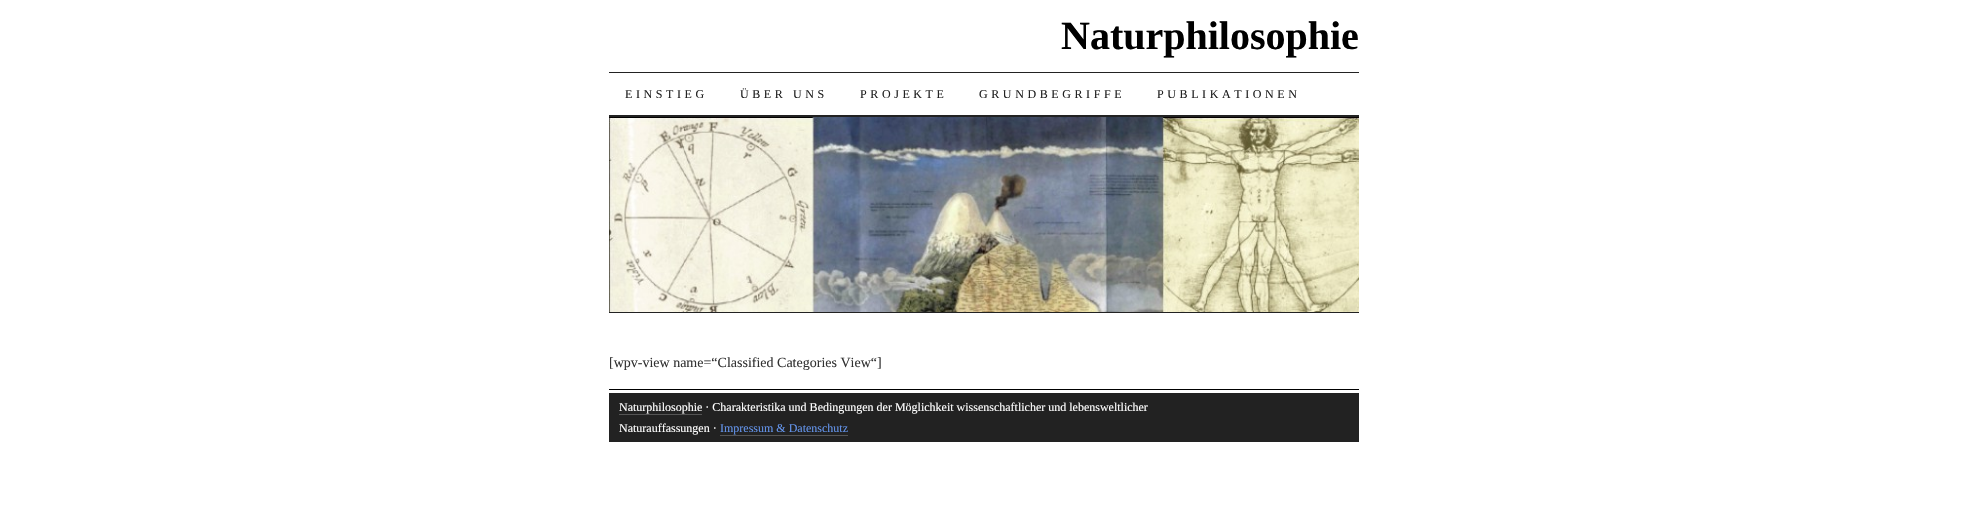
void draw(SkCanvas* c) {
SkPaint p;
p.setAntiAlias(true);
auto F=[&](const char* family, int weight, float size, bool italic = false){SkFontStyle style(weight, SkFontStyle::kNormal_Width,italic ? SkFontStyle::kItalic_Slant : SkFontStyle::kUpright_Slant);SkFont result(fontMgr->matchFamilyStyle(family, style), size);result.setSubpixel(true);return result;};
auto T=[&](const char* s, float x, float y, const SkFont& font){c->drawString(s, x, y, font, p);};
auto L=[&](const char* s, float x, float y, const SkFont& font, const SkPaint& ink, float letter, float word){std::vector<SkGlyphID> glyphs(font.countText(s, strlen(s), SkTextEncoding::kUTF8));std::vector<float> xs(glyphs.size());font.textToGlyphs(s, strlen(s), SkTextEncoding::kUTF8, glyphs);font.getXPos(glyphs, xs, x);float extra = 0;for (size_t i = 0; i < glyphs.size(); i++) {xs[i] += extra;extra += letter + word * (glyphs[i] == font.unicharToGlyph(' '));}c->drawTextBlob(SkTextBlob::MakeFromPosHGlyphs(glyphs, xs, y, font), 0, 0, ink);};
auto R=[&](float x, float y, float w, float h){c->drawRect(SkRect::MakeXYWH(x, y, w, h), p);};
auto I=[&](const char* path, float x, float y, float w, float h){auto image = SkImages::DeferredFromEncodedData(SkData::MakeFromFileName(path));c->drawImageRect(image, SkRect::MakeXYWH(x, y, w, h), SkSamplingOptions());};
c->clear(0xffffffff);
auto f1 = F("Liberation Serif",700,40);
p.setColor(0xff000000);
T("Naturphilosophie",1061,49,f1);
p.setColor(0xff222222);
R(609,72,750,1);
R(609,115,750,2);
auto f2 = F("Liberation Serif",400,12);
L("EINSTIEG",625,98,f2,p,3.6,0);
L("ÜBER UNS",740,98,f2,p,3.6,0);
L("PROJEKTE",860,98,f2,p,3.6,0);
L("GRUNDBEGRIFFE",979,98,f2,p,3.6,0);
L("PUBLIKATIONEN",1157,98,f2,p,3.6,0);
I("1.png",609,117,750,195);
R(609,312,750,1);
auto f3 = F("Liberation Serif",400,14);
p.setColor(0xff333333);
T("[wpv-view name=“Classified Categories View“]",609,367,f3);
p.setColor(0xff000000);
R(609,389,750,1);
p.setColor(0xff222222);
R(609,393,750,49);
p.setColor(0xffffffff);
T("Naturphilosophie · Charakteristika und Bedingungen der Möglichkeit wissenschaftlicher und lebensweltlicher",619,411,f2);
p.setColor(0xff555555);
R(619,414,83,1);
p.setColor(0xffffffff);
T("Naturauffassungen ·",619,432,f2);
p.setColor(0xff6495ed);
T("Impressum & Datenschutz",720,432,f2);
p.setColor(0xff555555);
R(720,435,128,1);
}
